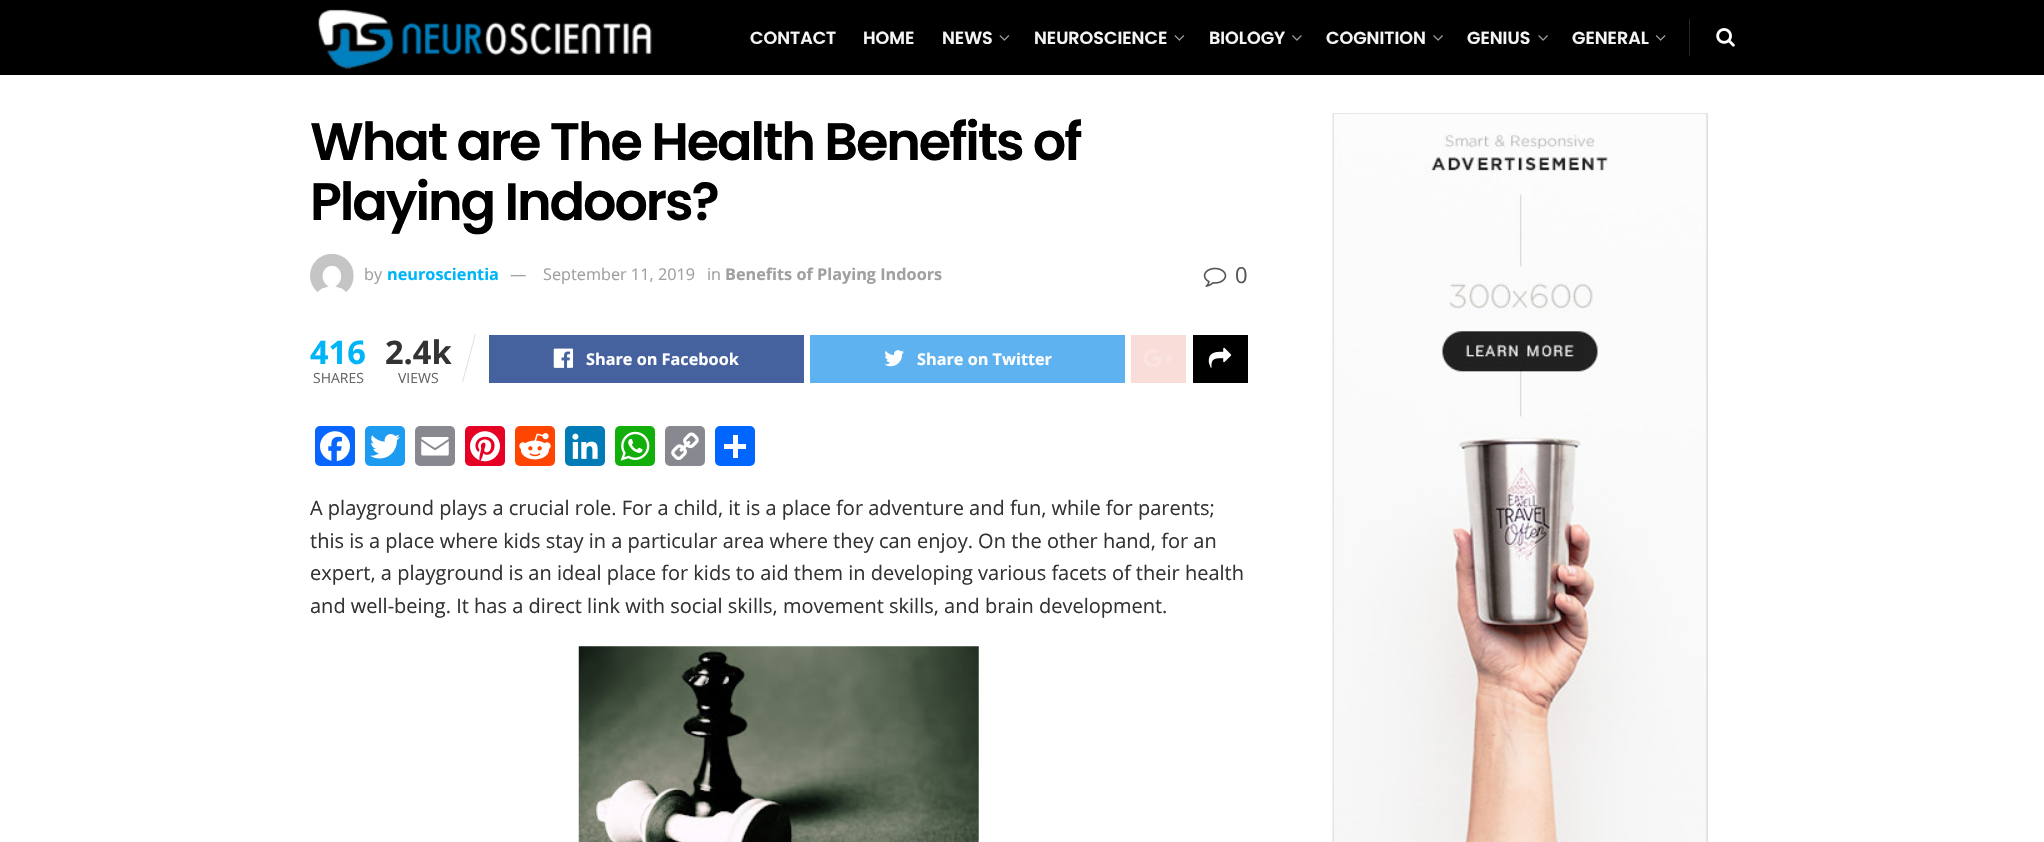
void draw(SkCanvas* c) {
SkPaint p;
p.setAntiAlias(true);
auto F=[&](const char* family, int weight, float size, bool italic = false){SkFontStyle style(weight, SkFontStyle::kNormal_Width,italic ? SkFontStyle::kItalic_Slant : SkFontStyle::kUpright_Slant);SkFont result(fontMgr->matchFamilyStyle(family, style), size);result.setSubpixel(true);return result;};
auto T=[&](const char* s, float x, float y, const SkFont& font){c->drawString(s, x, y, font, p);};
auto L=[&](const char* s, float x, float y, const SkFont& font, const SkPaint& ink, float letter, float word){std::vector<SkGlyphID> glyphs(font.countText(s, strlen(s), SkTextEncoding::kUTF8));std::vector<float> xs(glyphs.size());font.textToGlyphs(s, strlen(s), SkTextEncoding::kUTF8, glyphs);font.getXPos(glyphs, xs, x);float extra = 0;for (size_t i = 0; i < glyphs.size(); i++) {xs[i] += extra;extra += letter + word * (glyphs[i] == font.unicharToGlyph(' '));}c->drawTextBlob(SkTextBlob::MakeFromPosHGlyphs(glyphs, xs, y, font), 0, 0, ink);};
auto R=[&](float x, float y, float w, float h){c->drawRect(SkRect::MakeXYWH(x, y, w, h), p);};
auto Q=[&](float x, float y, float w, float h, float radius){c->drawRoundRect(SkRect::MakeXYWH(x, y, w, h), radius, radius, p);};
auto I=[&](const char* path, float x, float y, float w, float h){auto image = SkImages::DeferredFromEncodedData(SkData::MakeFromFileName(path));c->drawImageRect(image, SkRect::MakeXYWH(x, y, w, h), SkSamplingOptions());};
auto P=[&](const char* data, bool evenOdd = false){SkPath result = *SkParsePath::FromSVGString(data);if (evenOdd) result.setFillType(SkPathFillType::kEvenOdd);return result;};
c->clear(0xffffffff);
p.setColor(0xff000000);
R(0,0,2044,75);
I("1.png",318,9,334,60);
auto f1 = F("Poppins",600,17.5);
p.setColor(0xfff5f5f5);
T("CONTACT",750,44,f1);
T("HOME",863,44,f1);
T("NEWS",942,44,f1);
I("2.png",999,35,11,6);
T("NEUROSCIENCE",1034,44,f1);
I("2.png",1174,35,11,6);
T("BIOLOGY",1209,44,f1);
I("3.png",1292,35,10,6);
T("COGNITION",1326,44,f1);
I("4.png",1433,35,10,6);
T("GENIUS",1467,44,f1);
I("4.png",1538,35,10,6);
T("GENERAL",1572,44,f1);
I("5.png",1655,35,11,6);
p.setColor(0xff262626);
R(1689,19,1,37);
I("6.png",1716,28,19,19);
auto f2 = F("Poppins",600,52.5);
p.setColor(0xff000000);
L("What are The Health Benefits of",310,160,f2,p,-2.1,0);
L("Playing Indoors?",310,220,f2,p,-2.1,0);
I("7.png",310,254,44,38);
auto f3 = F("Open Sans",400,16.25);
p.setColor(0xffa0a0a0);
T("by",364,280,f3);
auto f4 = F("Open Sans",700,16.25);
p.setColor(0xff00b5f7);
T("neuroscientia",387,280,f4);
p.setColor(0xffa0a0a0);
T("—",510,280,f3);
T("September 11, 2019",543,280,f3);
T("in",707,280,f3);
T("Benefits of Playing Indoors",725,280,f4);
I("8.png",1203,267,24,20);
auto f5 = F("Open Sans",400,22);
p.setColor(0xff555555);
T("0",1235,283,f5);
auto f6 = F("Open Sans",700,32.5);
p.setColor(0xff00b5f7);
T("416",310,364,f6);
auto f7 = F("Open Sans",400,14);
p.setColor(0xff666666);
T("SHARES",313,383,f7);
p.setColor(0xff333333);
T("2.4k",385,364,f6);
p.setColor(0xffe0e0e0);
c->drawPath(P("M475 334h1l-13 48h-1z"),p);
p.setColor(0xff666666);
T("VIEWS",398,383,f7);
p.setColor(0xff45629f);
R(489,335,315,48);
I("9.png",553,348,21,20);
p.setColor(0xffffffff);
T("Share on Facebook",586,365,f4);
p.setColor(0xff5eb2ef);
R(810,335,315,48);
I("10.png",884,350,20,17);
p.setColor(0xffffffff);
T("Share on Twitter",917,365,f4);
p.setColor(0xfff9ddd9);
R(1131,335,55,48);
I("11.png",1144,349,29,18);
p.setColor(0xff000000);
R(1193,335,55,48);
I("12.png",1208,347,24,21);
p.setColor(0xff0866ff);
Q(315,426,40,40,5);
I("13.png",320,431,30,31);
p.setColor(0xff1d9bf0);
Q(365,426,40,40,5);
I("14.png",370,434,30,25);
p.setColor(0xff888990);
Q(415,426,40,40,5);
I("15.png",421,437,28,19);
p.setColor(0xffe60023);
Q(465,426,40,40,5);
I("16.png",470,431,30,31);
p.setColor(0xffff4500);
Q(515,426,40,40,5);
I("17.png",519,433,32,27);
p.setColor(0xff007bb5);
Q(565,426,40,40,5);
I("18.png",572,433,26,26);
p.setColor(0xff12af0a);
Q(615,426,40,40,5);
I("19.png",620,431,30,30);
p.setColor(0xff888990);
Q(665,426,40,40,5);
I("20.png",671,432,28,28);
p.setColor(0xff0166ff);
Q(715,426,40,40,5);
p.setColor(0xffffffff);
R(733,435,5,23);
R(724,444,22,5);
auto f8 = F("Open Sans",400,20);
p.setColor(0xff333333);
T("A playground plays a crucial role. For a child, it is a place for adventure and fun, while for parents;",310,515,f8);
T("this is a place where kids stay in a particular area where they can enjoy. On the other hand, for an",310,548,f8);
T("expert, a playground is an ideal place for kids to aid them in developing various facets of their health",310,580,f8);
T("and well-being. It has a direct link with social skills, movement skills, and brain development.",310,613,f8);
I("21.png",578,646,401,196);
I("22.png",1332,113,376,729);
}
